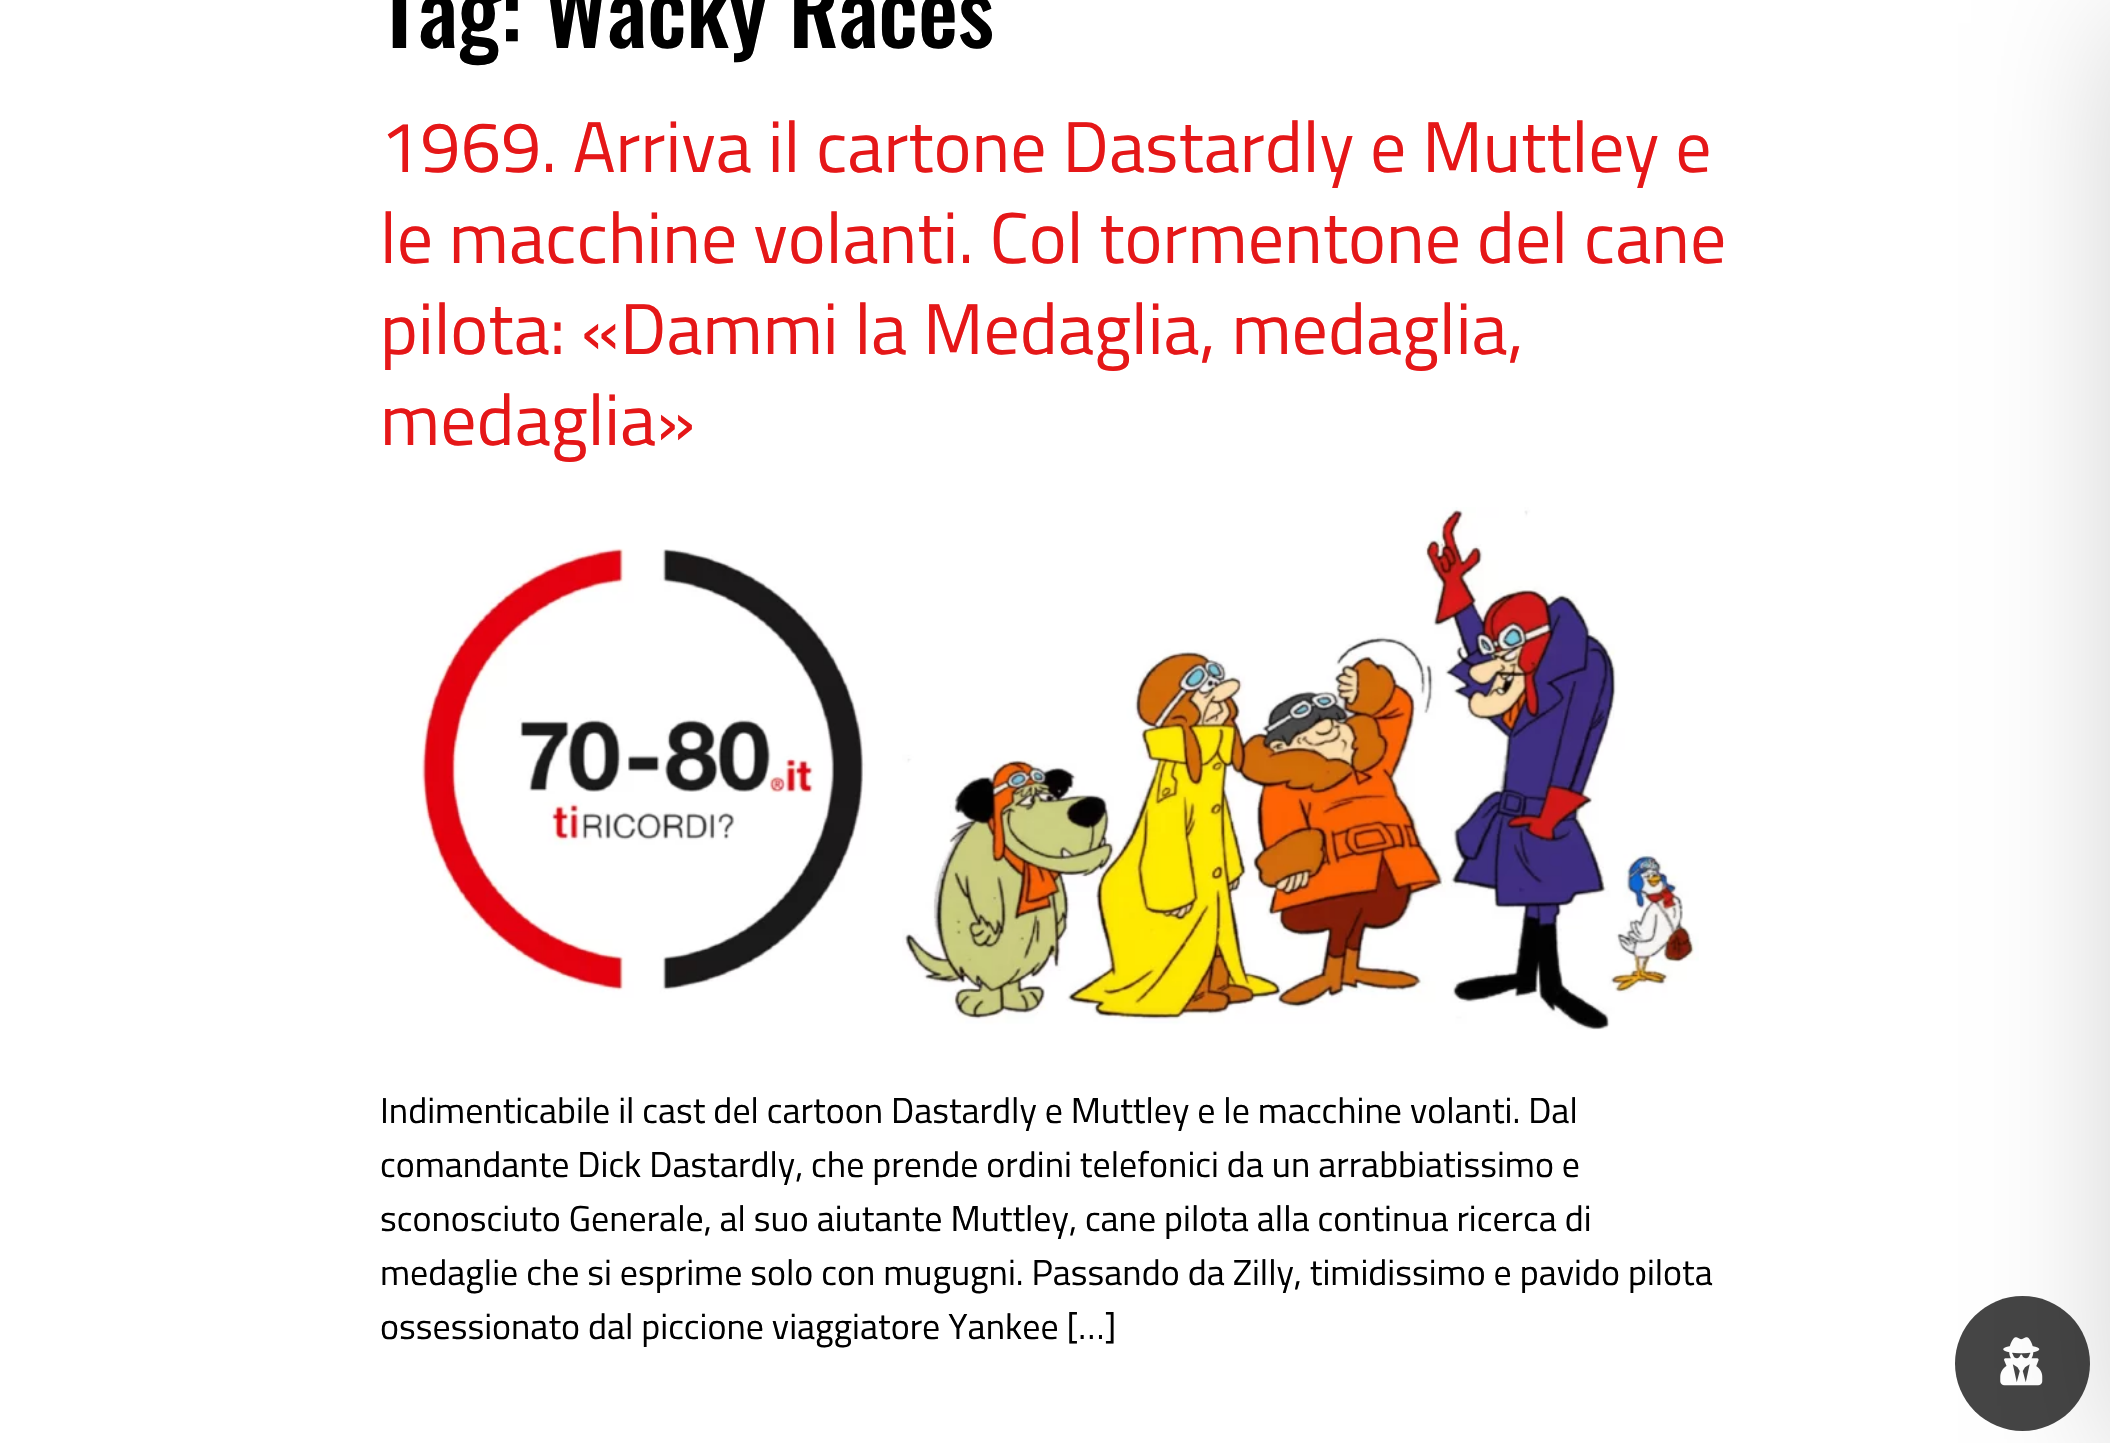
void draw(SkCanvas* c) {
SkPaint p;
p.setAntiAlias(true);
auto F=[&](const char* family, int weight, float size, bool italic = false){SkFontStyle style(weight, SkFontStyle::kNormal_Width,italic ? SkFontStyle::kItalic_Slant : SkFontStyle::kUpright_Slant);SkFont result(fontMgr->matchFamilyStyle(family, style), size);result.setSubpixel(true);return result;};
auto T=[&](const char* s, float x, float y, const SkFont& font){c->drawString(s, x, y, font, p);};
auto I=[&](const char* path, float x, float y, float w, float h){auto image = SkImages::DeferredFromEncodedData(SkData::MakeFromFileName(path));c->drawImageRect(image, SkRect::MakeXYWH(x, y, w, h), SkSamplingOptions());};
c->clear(0xffffffff);
auto f1 = F("Oswald",500,90);
p.setColor(0xff000000);
T("Tag: Wacky Races",380,48,f1);
auto f2 = F("Titillium Web",400,72);
p.setColor(0xffe51718);
T("1969. Arriva il cartone Dastardly e Muttley e",380,172,f2);
T("le macchine volanti. Col tormentone del cane",380,263,f2);
T("pilota: «Dammi la Medaglia, medaglia,",380,354,f2);
T("medaglia»",380,445,f2);
I("1.png",421,507,1278,523);
auto f3 = F("Titillium Web",400,36);
p.setColor(0xff000000);
T("Indimenticabile il cast del cartoon Dastardly e Muttley e le macchine volanti. Dal",380,1123,f3);
T("comandante Dick Dastardly, che prende ordini telefonici da un arrabbiatissimo e",380,1177,f3);
T("sconosciuto Generale, al suo aiutante Muttley, cane pilota alla continua ricerca di",380,1231,f3);
T("medaglie che si esprime solo con mugugni. Passando da Zilly, timidissimo e pavido pilota",380,1285,f3);
T("ossessionato dal piccione viaggiatore Yankee […]",380,1339,f3);
p.setColor(0xff454545);
c->drawCircle(2022.5,1363.5,67.5,p);
I("2.png",2000,1337,43,49);
p.setColor(0x33000000);
p.setMaskFilter(SkMaskFilter::MakeBlur(kNormal_SkBlurStyle, 67.5));
c->drawRect(SkRect::MakeXYWH(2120,23,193,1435),p);
p.setMaskFilter(nullptr);
}
